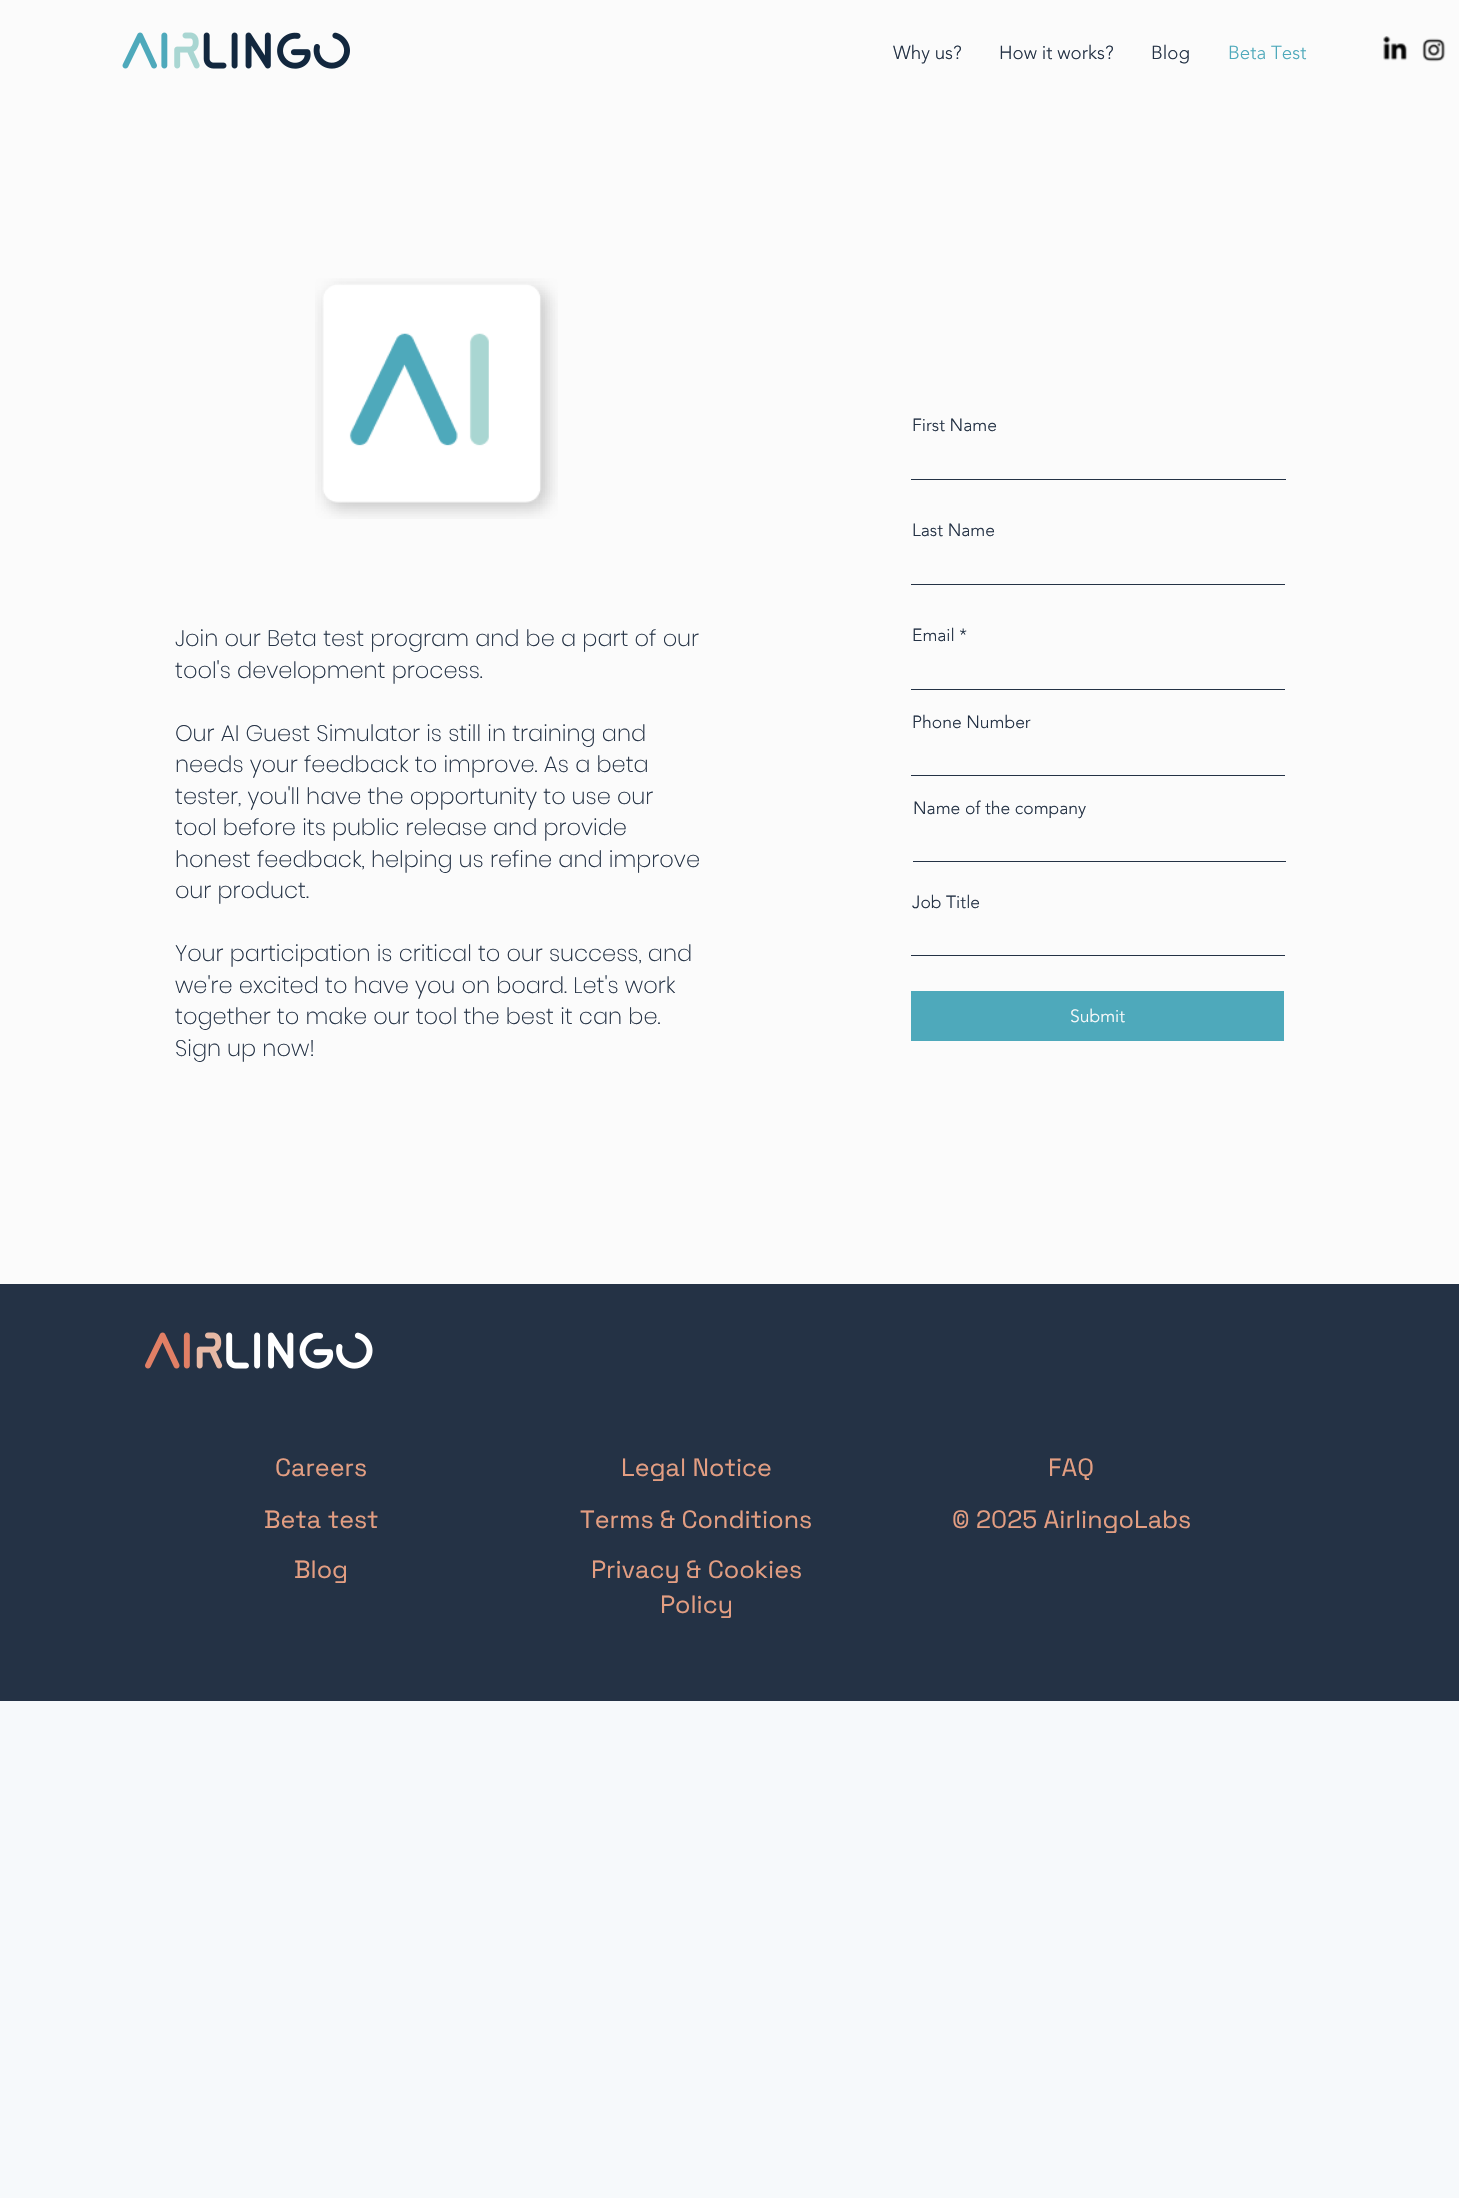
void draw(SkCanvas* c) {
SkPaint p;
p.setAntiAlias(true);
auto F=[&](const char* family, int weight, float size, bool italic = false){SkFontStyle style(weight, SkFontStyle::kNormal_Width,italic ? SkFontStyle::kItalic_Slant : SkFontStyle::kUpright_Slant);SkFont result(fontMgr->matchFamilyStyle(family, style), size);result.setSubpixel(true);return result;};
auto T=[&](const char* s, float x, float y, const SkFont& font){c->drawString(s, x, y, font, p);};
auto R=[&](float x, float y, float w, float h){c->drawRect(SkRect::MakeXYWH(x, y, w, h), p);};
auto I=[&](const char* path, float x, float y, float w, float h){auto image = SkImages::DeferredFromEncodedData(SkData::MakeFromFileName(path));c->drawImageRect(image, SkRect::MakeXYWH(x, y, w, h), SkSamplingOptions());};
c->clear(0xfff6f9fb);
p.setColor(0xfffbfbfb);
R(0,0,1459,1284);
I("1.png",122,32,228,37);
auto f1 = F("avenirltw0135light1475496",300,18.75);
p.setColor(0xff243245);
T("Why us?",893,59,f1);
T("How it works?",999,59,f1);
T("Blog",1151,59,f1);
p.setColor(0xff4ea9bb);
T("Beta Test",1228,59,f1);
I("2.png",1383,36,25,25);
I("3.png",1422,38,24,24);
I("4.png",315,278,243,241);
auto f2 = F("Poppins",200,22.5);
p.setColor(0xff243245);
T("Join our Beta test program and be a part of our",175,646,f2);
T("tool's development process.",175,678,f2);
T("Our AI Guest Simulator is still in training and",175,741,f2);
T("needs your feedback to improve. As a beta",175,772,f2);
T("tester, you'll have the opportunity to use our",175,804,f2);
T("tool before its public release and provide",175,835,f2);
T("honest feedback, helping us refine and improve",175,867,f2);
T("our product.",175,898,f2);
T("Your participation is critical to our success, and",175,961,f2);
T("we're excited to have you on board. Let's work",175,993,f2);
T("together to make our tool the best it can be.",175,1024,f2);
T("Sign up now!",175,1056,f2);
auto f3 = F("avenirltw0135light1475496",300,17.5);
T("First Name",912,431,f3);
R(911,479,375,1);
T("Last Name",912,536,f3);
R(911,584,374,1);
T("Email *",912,641,f3);
R(911,689,374,1);
T("Phone Number",912,728,f3);
R(911,775,374,1);
T("Name of the company",913,814,f3);
R(913,861,373,1);
T("Job Title",912,908,f3);
R(911,955,374,1);
p.setColor(0xff4ea9bb);
R(911,991,373,50);
p.setColor(0xfffbfbfb);
T("Submit",1070,1022,f3);
p.setColor(0xff243245);
R(0,1284,1459,417);
I("5.png",145,1332,228,37);
auto f4 = F("Space Grotesk",400,25);
p.setColor(0xffe39e82);
T("Careers",275,1476,f4);
T("Beta test",264,1528,f4);
T("Blog",294,1578,f4);
T("Legal Notice",621,1476,f4);
T("Terms & Conditions",580,1528,f4);
T("Privacy & Cookies",591,1578,f4);
T("Policy",660,1613,f4);
T("FAQ",1048,1476,f4);
T("© 2025 AirlingoLabs",952,1528,f4);
}
